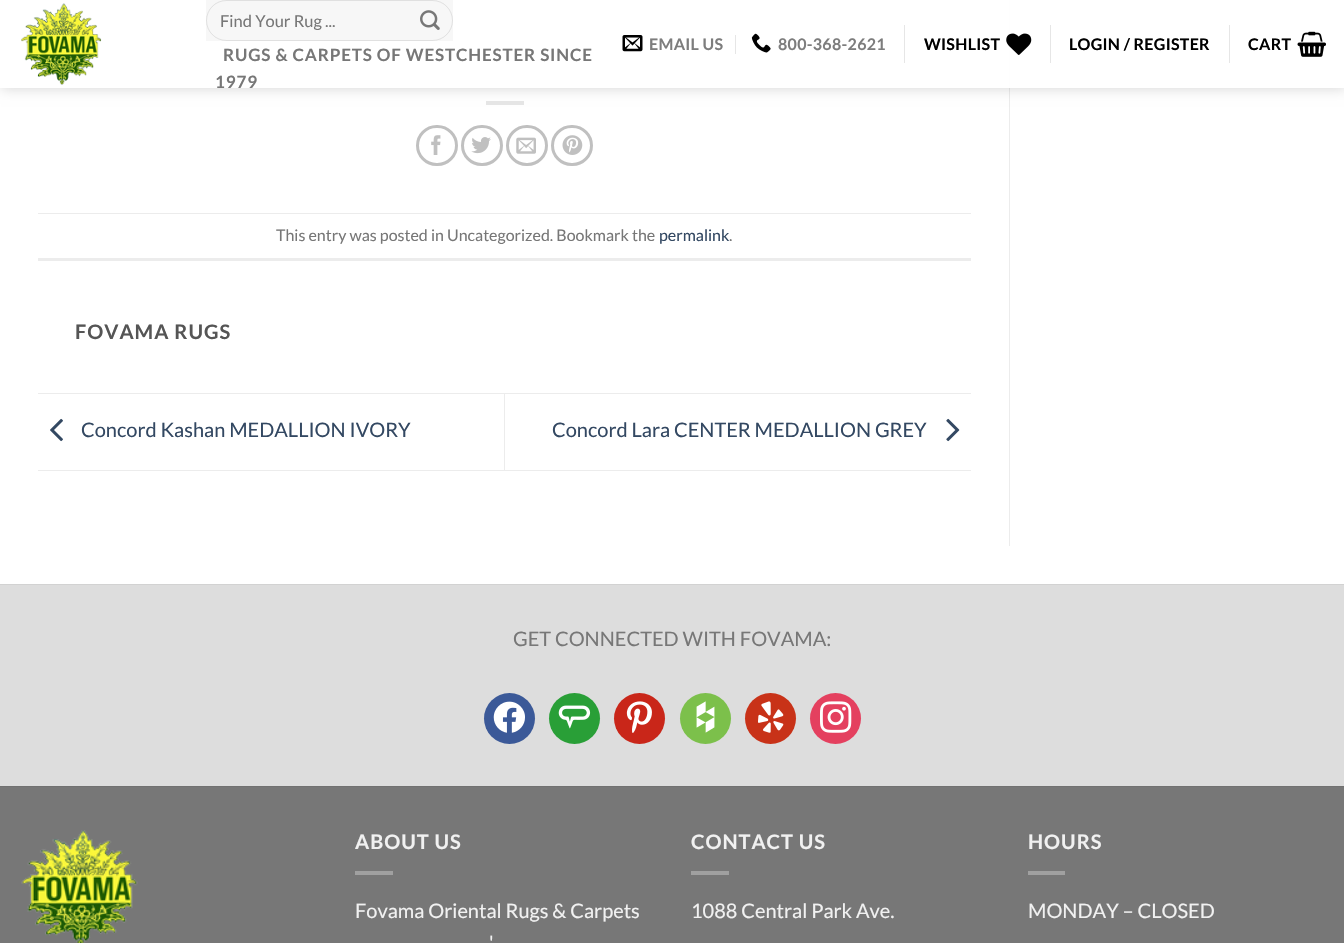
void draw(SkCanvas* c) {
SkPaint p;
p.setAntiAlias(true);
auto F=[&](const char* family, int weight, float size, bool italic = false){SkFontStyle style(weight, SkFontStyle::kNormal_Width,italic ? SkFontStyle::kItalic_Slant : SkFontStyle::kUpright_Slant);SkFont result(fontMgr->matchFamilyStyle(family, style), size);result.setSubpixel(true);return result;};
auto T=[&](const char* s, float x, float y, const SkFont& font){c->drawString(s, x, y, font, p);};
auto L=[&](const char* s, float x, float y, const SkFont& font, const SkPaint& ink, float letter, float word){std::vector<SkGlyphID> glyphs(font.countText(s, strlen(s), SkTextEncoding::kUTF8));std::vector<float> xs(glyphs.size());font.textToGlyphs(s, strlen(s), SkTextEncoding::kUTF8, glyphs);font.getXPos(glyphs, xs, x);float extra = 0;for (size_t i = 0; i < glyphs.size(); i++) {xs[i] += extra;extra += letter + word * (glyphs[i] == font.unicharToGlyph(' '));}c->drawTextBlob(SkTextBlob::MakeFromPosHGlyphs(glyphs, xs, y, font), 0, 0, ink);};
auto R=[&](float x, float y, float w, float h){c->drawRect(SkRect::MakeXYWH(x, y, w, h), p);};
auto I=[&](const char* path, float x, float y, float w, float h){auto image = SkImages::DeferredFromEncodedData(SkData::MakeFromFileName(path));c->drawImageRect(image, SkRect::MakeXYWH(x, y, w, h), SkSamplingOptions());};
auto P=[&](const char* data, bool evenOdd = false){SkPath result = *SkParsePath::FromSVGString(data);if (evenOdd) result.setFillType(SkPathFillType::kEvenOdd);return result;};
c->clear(0xffffffff);
p.setColor(0xffe6e6e6);
R(486,101,38,4);
p.setColor(0xffececec);
R(1009,0,1,546);
c->save();
c->clipPath(P("M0 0h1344v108h-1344zm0 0h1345v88h-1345z",true),true);
p.setColor(0x26000000);
p.setMaskFilter(SkMaskFilter::MakeBlur(kNormal_SkBlurStyle, 6));
c->drawRect(SkRect::MakeXYWH(1,1,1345,88),p);
p.setMaskFilter(nullptr);
c->restore();
p.setColor(0xe6ffffff);
R(0,0,1344,88);
I("1.png",21,3,81,82);
p.setColor(0x08000000);
R(206,0,247,41);
p.setStroke(true);
p.setStrokeWidth(1);
p.setColor(0x17000000);
c->drawRoundRect(SkRect::MakeXYWH(206.5,.5,246,40),20,20,p);
auto f1 = F("Lato",400,16.5);
p.setStroke(false);
p.setColor(0xff777777);
T("Find Your Rug ...",220,27,f1);
I("2.png",420,10,20,20);
auto f2 = F("Lato",700,17);
L("RUGS & CARPETS OF WESTCHESTER SINCE",223,61,f2,p,.85,0);
L("1979",215,88,f2,p,.85,0);
I("3.png",622,35,21,17);
auto f3 = F("Lato",700,16);
p.setColor(0xff7d7d7d);
L("EMAIL US",649,50,f3,p,.3,0);
p.setColor(0xffe6e6e6);
R(735,35,1,19);
I("4.png",751,33,20,20);
p.setColor(0xff7d7d7d);
L("800-368-2621",778,50,f3,p,.3,0);
p.setColor(0xffe6e6e6);
R(904,25,1,38);
p.setColor(0xff000000);
L("WISHLIST",924,50,f3,p,.3,0);
I("5.png",1006,33,26,22);
p.setColor(0xffe6e6e6);
R(1050,25,1,38);
p.setColor(0xff000000);
L("LOGIN / REGISTER",1069,50,f3,p,.3,0);
p.setColor(0xffe6e6e6);
R(1229,25,1,38);
p.setColor(0xff000000);
L("CART",1248,50,f3,p,.3,0);
I("6.png",1297,31,29,26);
p.setStroke(true);
p.setStrokeWidth(3);
p.setColor(0xffc0c0c0);
c->drawRoundRect(SkRect::MakeXYWH(417.5,126.5,39,38),19,19,p);
I("7.png",431,135,10,20);
c->drawRoundRect(SkRect::MakeXYWH(462.5,126.5,39,38),19,19,p);
I("8.png",471,137,20,17);
c->drawRoundRect(SkRect::MakeXYWH(507.5,126.5,39,38),19,19,p);
I("9.png",516,137,20,17);
c->drawRoundRect(SkRect::MakeXYWH(552.5,126.5,39,38),19,19,p);
I("10.png",562,135,21,20);
p.setStroke(false);
p.setColor(0xffececec);
R(38,213,933,1);
R(38,258,933,3);
auto f4 = F("Lato",400,16);
p.setColor(0xff777777);
T("This entry was posted in Uncategorized. Bookmark the",276,241,f4);
p.setColor(0xff334862);
T("permalink",659,241,f4);
p.setColor(0xff777777);
T(".",729,241,f4);
auto f5 = F("Lato",700,20);
p.setColor(0xff555555);
L("FOVAMA RUGS",75,339,f5,p,1,0);
p.setColor(0xffececec);
R(38,393,933,1);
R(38,470,933,1);
I("11.png",50,418,13,24);
auto f6 = F("Lato",400,20);
p.setColor(0xff334862);
T("Concord Kashan MEDALLION IVORY",81,437,f6);
p.setColor(0xffececec);
R(504,394,1,76);
p.setColor(0xff334862);
T("Concord Lara CENTER MEDALLION GREY",552,437,f6);
I("12.png",946,418,14,24);
p.setColor(0xffdddddd);
R(0,585,1344,201);
p.setColor(0xffd2d2d2);
R(0,584,1344,1);
p.setColor(0xff777777);
T("GET CONNECTED WITH FOVAMA:",513,646,f6);
p.setColor(0xff3b5998);
c->drawCircle(509.5,718.5,25.5,p);
I("13.png",493,701,32,32);
p.setColor(0xff299f37);
c->drawCircle(574.5,718.5,25.5,p);
I("14.png",558,705,33,24);
p.setColor(0xffc92619);
c->drawCircle(639.5,718.5,25.5,p);
I("15.png",626,701,26,32);
p.setColor(0xff7cc04b);
c->drawCircle(705.5,718.5,25.5,p);
I("16.png",696,701,19,32);
p.setColor(0xffc83218);
c->drawCircle(770.5,718.5,25.5,p);
I("17.png",758,701,26,32);
p.setColor(0xffe4405f);
c->drawCircle(835.5,718.5,25.5,p);
I("18.png",820,701,32,32);
p.setColor(0xff777777);
R(0,787,1344,156);
p.setColor(0xff717171);
R(0,786,1344,1);
I("19.png",21,830,117,113);
p.setColor(0xfff1f1f1);
L("ABOUT US",355,849,f5,p,1,0);
p.setColor(0xffa0a0a0);
R(355,871,38,4);
p.setColor(0xfff1f1f1);
T("Fovama Oriental Rugs & Carpets",355,918,f6);
T("'",489,950,f6);
L("CONTACT US",691,849,f5,p,1,0);
p.setColor(0xffa0a0a0);
R(691,871,38,4);
p.setColor(0xfff1f1f1);
T("1088 Central Park Ave.",691,918,f6);
L("HOURS",1028,849,f5,p,1,0);
p.setColor(0xffa0a0a0);
R(1028,871,37,4);
p.setColor(0xfff1f1f1);
T("MONDAY – CLOSED",1028,918,f6);
}
